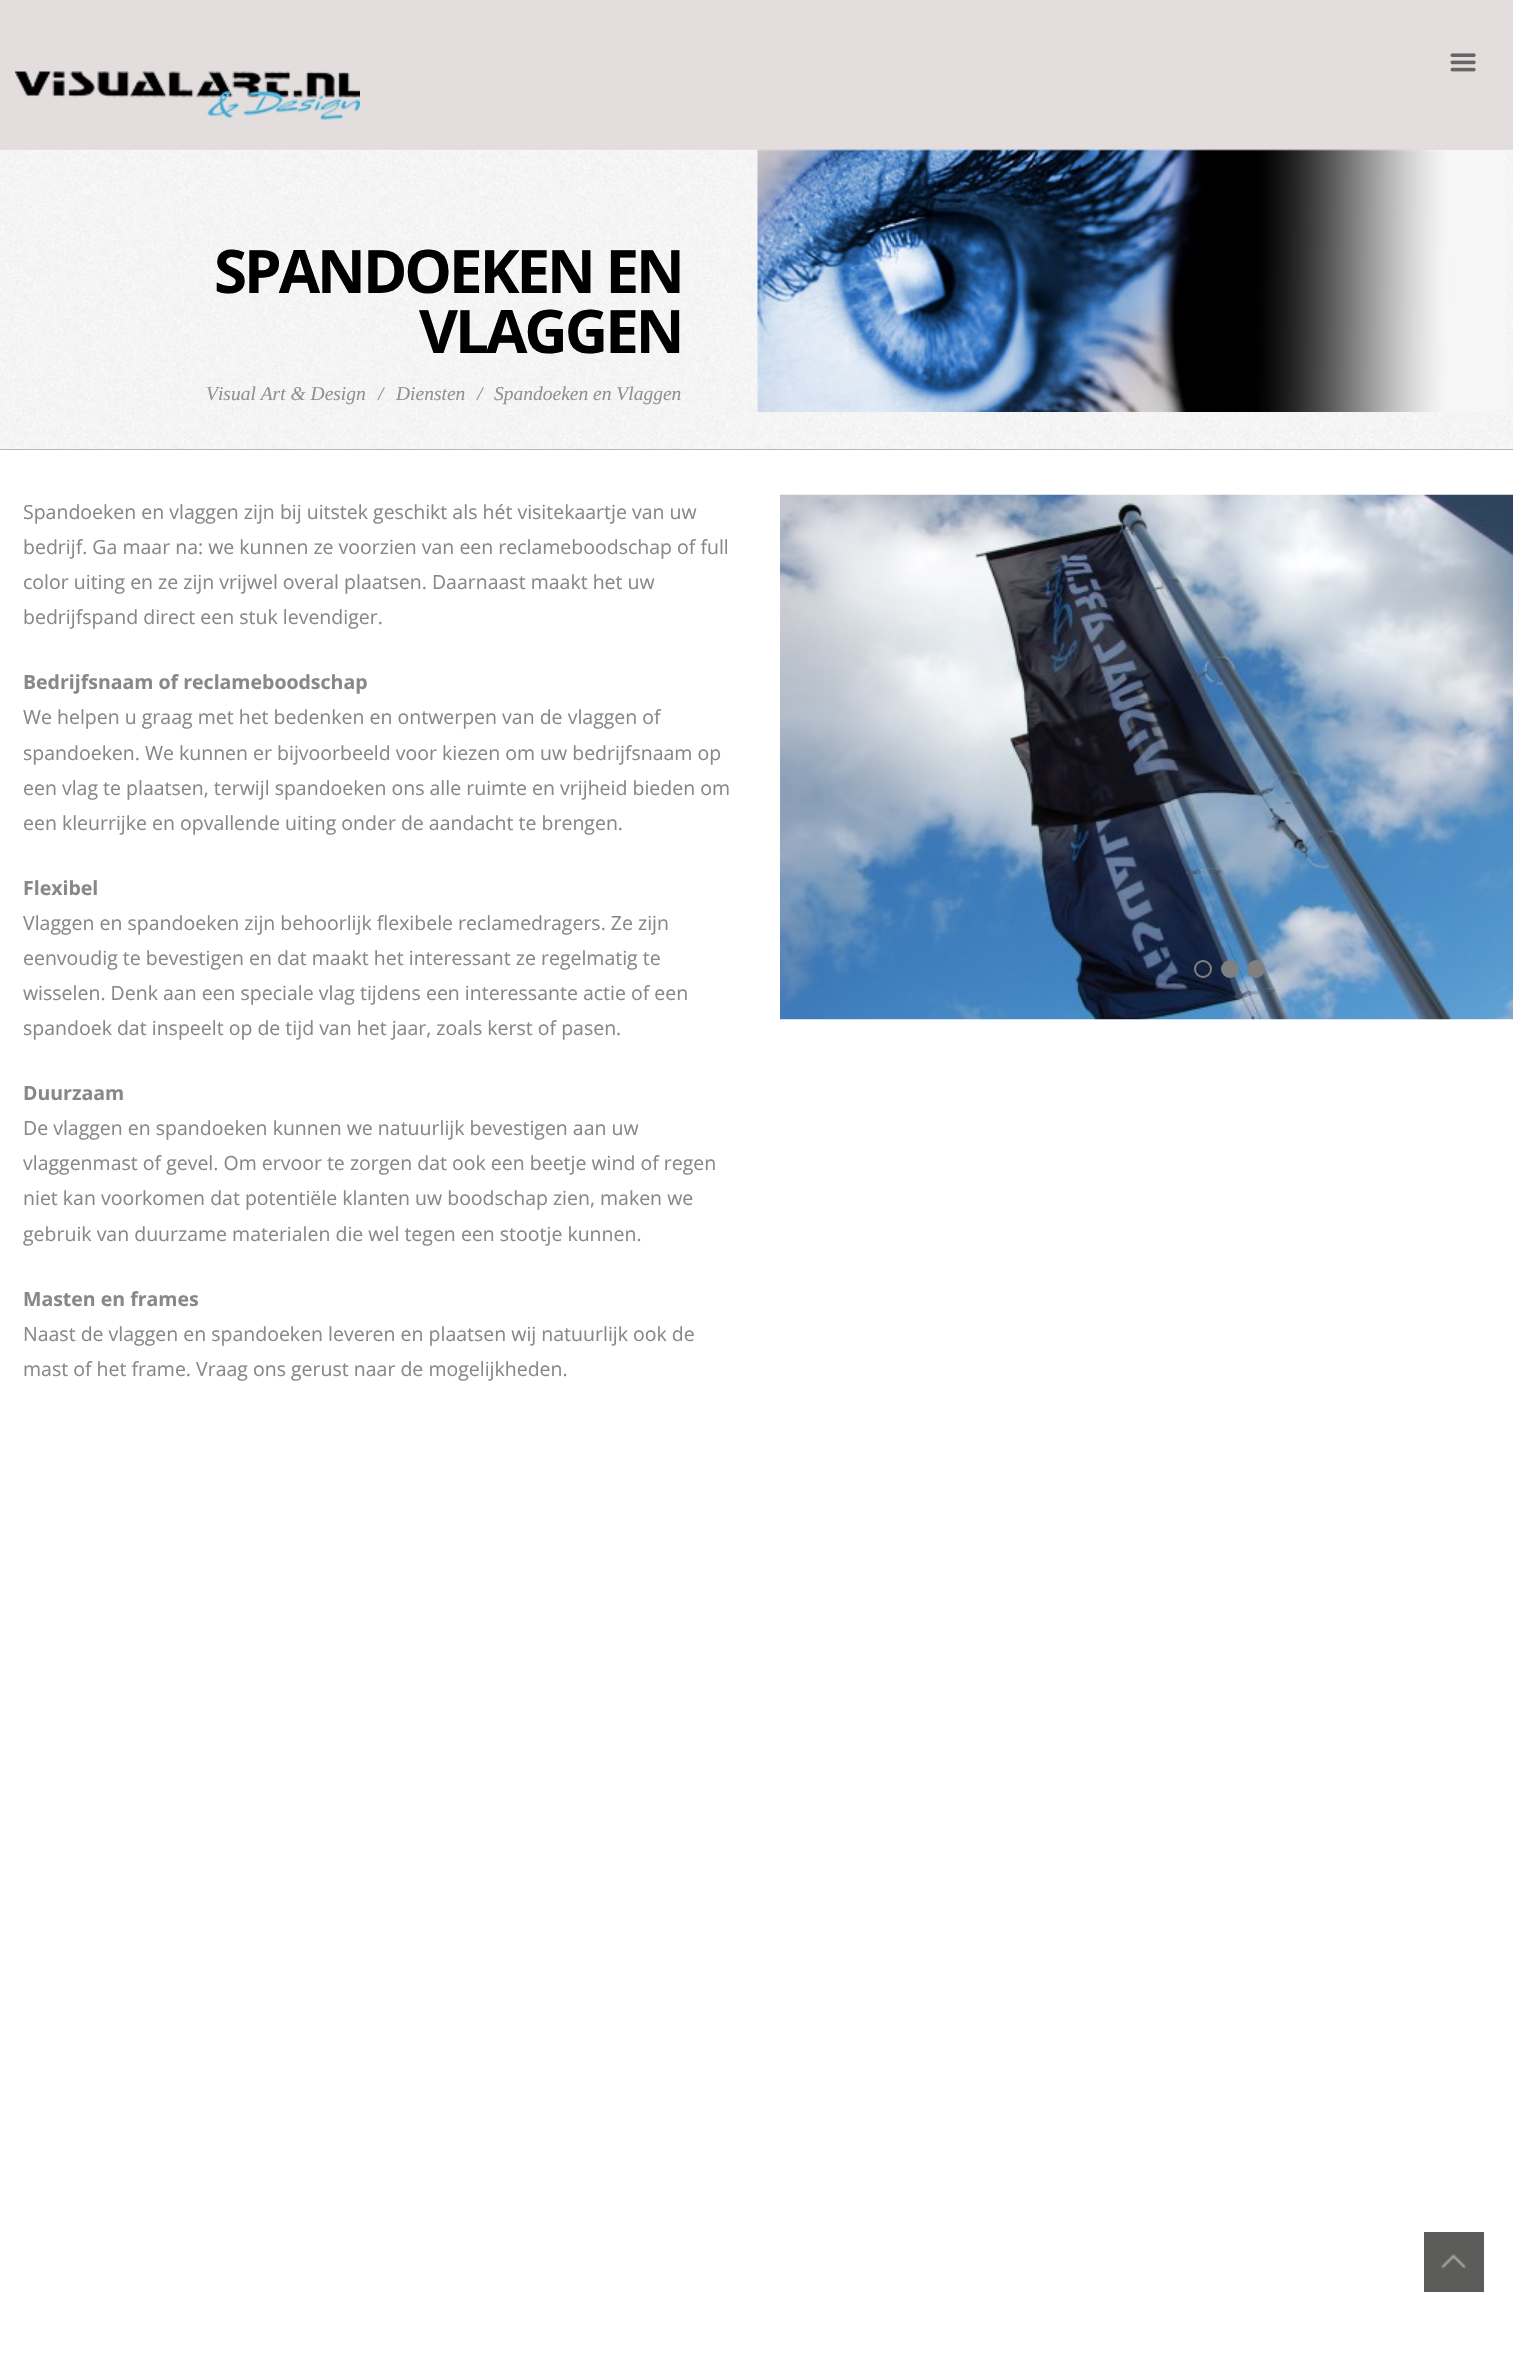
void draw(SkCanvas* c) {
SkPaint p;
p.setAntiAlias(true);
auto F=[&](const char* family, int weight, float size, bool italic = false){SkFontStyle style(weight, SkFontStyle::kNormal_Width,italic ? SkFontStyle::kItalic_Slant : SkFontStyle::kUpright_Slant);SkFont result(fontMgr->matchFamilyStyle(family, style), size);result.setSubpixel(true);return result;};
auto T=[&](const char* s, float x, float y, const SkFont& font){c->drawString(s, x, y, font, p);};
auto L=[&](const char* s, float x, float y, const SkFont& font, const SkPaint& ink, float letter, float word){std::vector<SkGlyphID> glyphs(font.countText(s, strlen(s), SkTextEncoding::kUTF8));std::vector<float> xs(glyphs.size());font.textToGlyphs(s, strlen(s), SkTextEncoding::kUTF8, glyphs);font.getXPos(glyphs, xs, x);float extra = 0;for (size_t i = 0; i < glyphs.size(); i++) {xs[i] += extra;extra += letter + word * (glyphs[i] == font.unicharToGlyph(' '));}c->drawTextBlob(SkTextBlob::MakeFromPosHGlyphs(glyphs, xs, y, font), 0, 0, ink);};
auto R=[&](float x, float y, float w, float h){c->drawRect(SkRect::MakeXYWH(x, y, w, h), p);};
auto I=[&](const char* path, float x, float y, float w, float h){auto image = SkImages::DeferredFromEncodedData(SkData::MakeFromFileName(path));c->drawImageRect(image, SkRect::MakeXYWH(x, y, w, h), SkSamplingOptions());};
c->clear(0xffffffff);
p.setColor(0xff916969);
R(0,449,1513,1);
I("3.png",0,149,1513,301);
I("4.png",757,149,750,263);
p.setColor(0x61b5a5a5);
R(0,0,1513,150);
p.setColor(0x33ffffff);
R(0,149,1513,2);
I("1.png",1450,53,26,19);
I("2.png",15,71,345,49);
auto f1 = F("Open Sans",700,60);
p.setColor(0xff000000);
L("SPANDOEKEN EN",214,293,f1,p,-3,0);
L("VLAGGEN",419,353,f1,p,-3,0);
auto f2 = F("Liberation Serif",400,19.5,true);
p.setColor(0xff919191);
T("Visual Art & Design",206,400,f2);
T("/",378,400,f2);
T("Diensten",396,400,f2);
T("/",477,400,f2);
T("Spandoeken en Vlaggen",494,400,f2);
auto f3 = F("Open Sans",400,19.5);
p.setColor(0xff888888);
T("Spandoeken en vlaggen zijn bij uitstek geschikt als hét visitekaartje van uw",23,519,f3);
T("bedrijf. Ga maar na: we kunnen ze voorzien van een reclameboodschap of full",23,554,f3);
T("color uiting en ze zijn vrijwel overal plaatsen. Daarnaast maakt het uw",23,589,f3);
T("bedrijfspand direct een stuk levendiger.",23,624,f3);
auto f4 = F("Open Sans",700,19.5);
T("Bedrijfsnaam of reclameboodschap",23,689,f4);
T("We helpen u graag met het bedenken en ontwerpen van de vlaggen of",23,724,f3);
T("spandoeken. We kunnen er bijvoorbeeld voor kiezen om uw bedrijfsnaam op",23,760,f3);
T("een vlag te plaatsen, terwijl spandoeken ons alle ruimte en vrijheid bieden om",23,795,f3);
T("een kleurrijke en opvallende uiting onder de aandacht te brengen.",23,830,f3);
T("Flexibel",23,895,f4);
T("Vlaggen en spandoeken zijn behoorlijk flexibele reclamedragers. Ze zijn",23,930,f3);
T("eenvoudig te bevestigen en dat maakt het interessant ze regelmatig te",23,965,f3);
T("wisselen. Denk aan een speciale vlag tijdens een interessante actie of een",23,1000,f3);
T("spandoek dat inspeelt op de tijd van het jaar, zoals kerst of pasen.",23,1035,f3);
T("Duurzaam",23,1100,f4);
T("De vlaggen en spandoeken kunnen we natuurlijk bevestigen aan uw",23,1135,f3);
T("vlaggenmast of gevel. Om ervoor te zorgen dat ook een beetje wind of regen",23,1170,f3);
T("niet kan voorkomen dat potentiële klanten uw boodschap zien, maken we",23,1205,f3);
T("gebruik van duurzame materialen die wel tegen een stootje kunnen.",23,1241,f3);
T("Masten en frames",23,1306,f4);
T("Naast de vlaggen en spandoeken leveren en plaatsen wij natuurlijk ook de",23,1341,f3);
T("mast of het frame. Vraag ons gerust naar de mogelijkheden.",23,1376,f3);
I("5.png",780,494,733,526);
p.setStroke(true);
p.setStrokeWidth(2);
p.setColor(0xff808080);
c->drawCircle(1203,969,8,p);
p.setStroke(false);
c->drawCircle(1230,969,8,p);
p.setStroke(true);
c->drawCircle(1230,969,8,p);
p.setStroke(false);
c->drawCircle(1256,969,8,p);
p.setStroke(true);
c->drawCircle(1256,969,8,p);
p.setStroke(false);
p.setColor(0xff5c5c5b);
R(1424,2232,60,60);
I("6.png",1441,2254,25,15);
}
